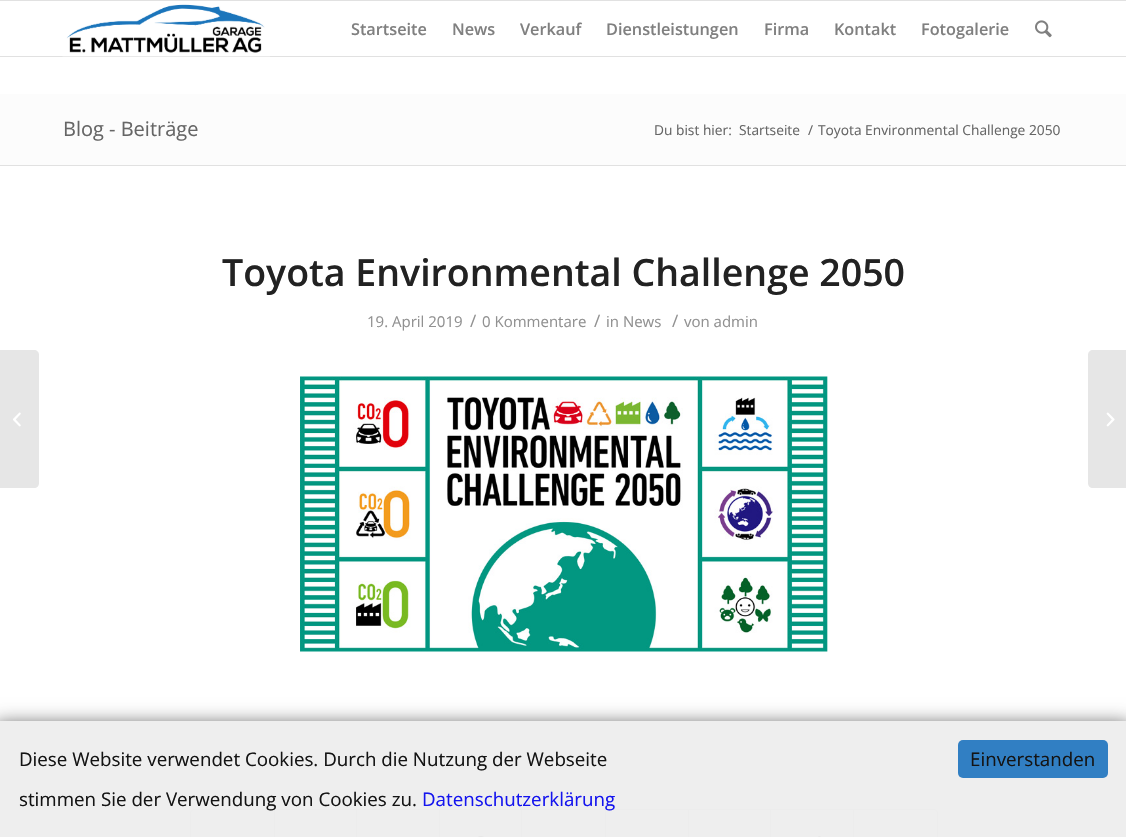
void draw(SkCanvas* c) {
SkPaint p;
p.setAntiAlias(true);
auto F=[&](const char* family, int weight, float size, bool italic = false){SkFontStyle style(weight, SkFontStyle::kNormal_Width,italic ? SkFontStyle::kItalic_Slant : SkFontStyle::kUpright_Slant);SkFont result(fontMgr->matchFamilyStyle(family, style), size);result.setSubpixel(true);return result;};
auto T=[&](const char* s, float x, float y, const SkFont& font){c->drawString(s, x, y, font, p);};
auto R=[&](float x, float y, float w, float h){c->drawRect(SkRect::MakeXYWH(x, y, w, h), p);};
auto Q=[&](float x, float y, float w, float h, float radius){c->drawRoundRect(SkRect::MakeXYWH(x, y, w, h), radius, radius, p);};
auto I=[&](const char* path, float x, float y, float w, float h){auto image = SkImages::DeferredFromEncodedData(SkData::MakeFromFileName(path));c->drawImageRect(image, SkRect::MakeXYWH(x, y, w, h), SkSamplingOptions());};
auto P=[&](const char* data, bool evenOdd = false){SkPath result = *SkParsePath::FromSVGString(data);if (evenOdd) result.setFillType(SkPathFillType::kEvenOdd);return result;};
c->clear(0xffffffff);
p.setColor(0xffe1e1e1);
R(0,0,1126,1);
R(0,56,1126,1);
I("1.png",62,4,208,53);
auto f1 = F("Open Sans",600,16.25);
p.setColor(0xff808080);
T("Startseite",351,35,f1);
T("News",452,35,f1);
T("Verkauf",520,35,f1);
T("Dienstleistungen",606,35,f1);
T("Firma",764,35,f1);
T("Kontakt",834,35,f1);
T("Fotogalerie",921,35,f1);
I("2.png",1035,20,17,18);
p.setColor(0xfffcfcfc);
R(0,94,1126,71);
auto f2 = F("Open Sans",400,20);
p.setColor(0xff666666);
T("Blog - Beiträge",63,136,f2);
auto f3 = F("Open Sans",400,13.75);
T("Du bist hier:",654,135,f3);
T("Startseite",739,135,f3);
T("/",808,135,f3);
T("Toyota Environmental Challenge 2050",818,135,f3);
p.setColor(0xffe1e1e1);
R(0,165,1126,1);
auto f4 = F("Open Sans",600,37.5);
p.setColor(0xff222222);
T("Toyota Environmental Challenge 2050",222,286,f4);
auto f5 = F("Open Sans",400,15);
p.setColor(0xff919191);
T("19. April 2019",367,327,f5);
auto f6 = F("Open Sans",400,17);
T("/",470,327,f6);
T("0 Kommentare",482,327,f5);
T("/",594,327,f6);
T("in News",606,327,f5);
T("/",672,327,f6);
T("von admin",684,327,f5);
I("3.png",300,376,528,276);
p.setStroke(true);
p.setStrokeWidth(1);
p.setColor(0xffe1e1e1);
c->drawRoundRect(SkRect::MakeXYWH(190.5,809.5,747,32),3.5,3.5,p);
p.setStroke(false);
R(274,810,1,27);
R(356,810,1,27);
R(439,810,1,27);
I("4.png",478,836,6,1);
R(521,810,1,27);
R(605,810,1,27);
R(688,810,1,27);
R(770,810,1,27);
I("5.png",813,836,8,1);
R(853,810,1,27);
p.setColor(0xffe6e6e6);
c->drawPath(P("M0 350h34c3 0 5 2 5 5v128c0 3-2 5-5 5h-34z"),p);
I("6.png",13,412,8,15);
c->drawPath(P("M1093 350h33v138h-33c-3 0-5-2-5-5v-128c0-3 2-5 5-5z"),p);
I("7.png",1106,412,9,15);
c->save();
c->clipPath(P("M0 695h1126v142h-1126zm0 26h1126v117h-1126z",true),true);
p.setColor(0xff444444);
p.setMaskFilter(SkMaskFilter::MakeBlur(kNormal_SkBlurStyle, 9.5));
c->drawRect(SkRect::MakeXYWH(-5,725,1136,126),p);
p.setMaskFilter(nullptr);
c->restore();
p.setColor(0xebededed);
R(0,721,1126,116);
auto f7 = F("Open Sans",400,18.75);
p.setColor(0xff141414);
T("Diese Website verwendet Cookies. Durch die Nutzung der Webseite",19,766,f7);
T("stimmen Sie der Verwendung von Cookies zu.",19,806,f7);
p.setColor(0xff1414ee);
T("Datenschutzerklärung",422,806,f7);
p.setColor(0xff317fc3);
Q(958,740,150,38,5);
p.setColor(0xff141414);
T("Einverstanden",970,766,f7);
}
